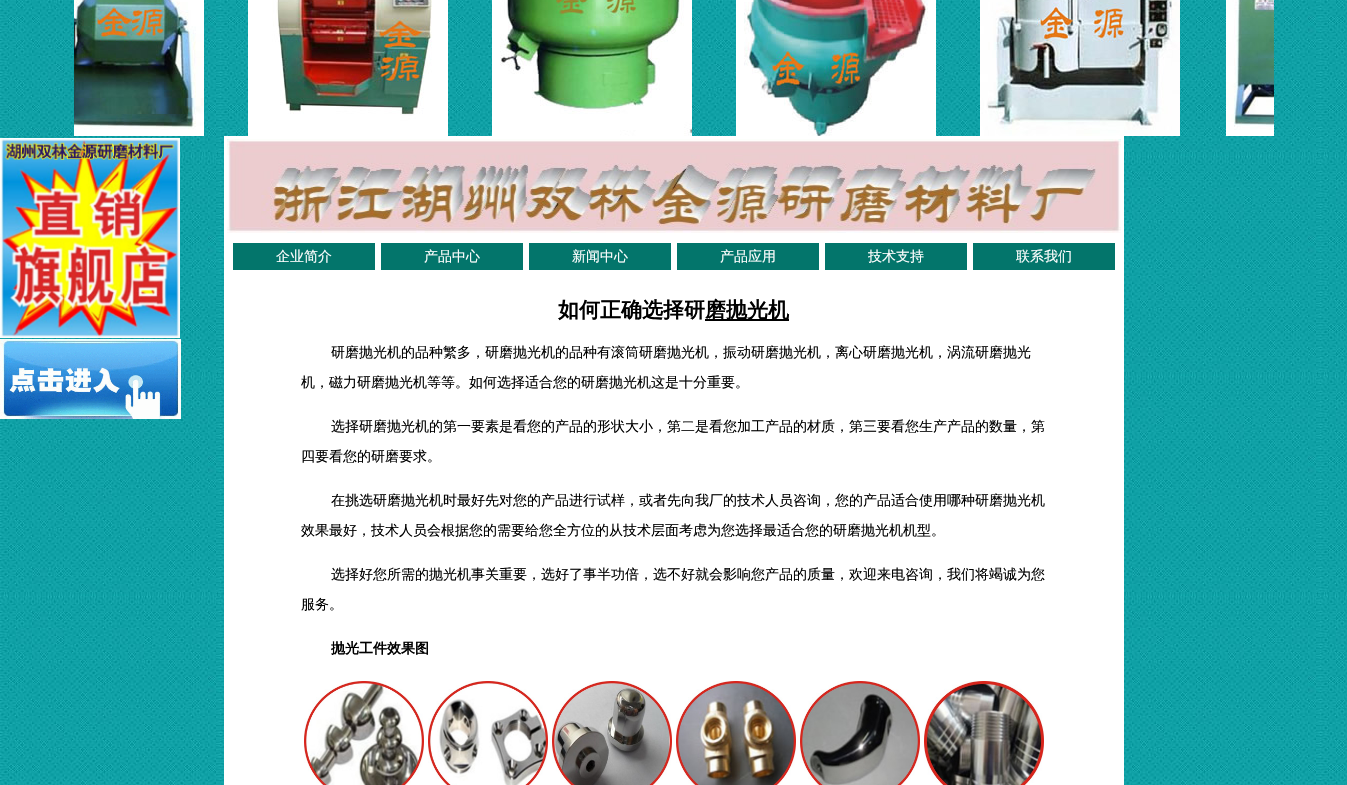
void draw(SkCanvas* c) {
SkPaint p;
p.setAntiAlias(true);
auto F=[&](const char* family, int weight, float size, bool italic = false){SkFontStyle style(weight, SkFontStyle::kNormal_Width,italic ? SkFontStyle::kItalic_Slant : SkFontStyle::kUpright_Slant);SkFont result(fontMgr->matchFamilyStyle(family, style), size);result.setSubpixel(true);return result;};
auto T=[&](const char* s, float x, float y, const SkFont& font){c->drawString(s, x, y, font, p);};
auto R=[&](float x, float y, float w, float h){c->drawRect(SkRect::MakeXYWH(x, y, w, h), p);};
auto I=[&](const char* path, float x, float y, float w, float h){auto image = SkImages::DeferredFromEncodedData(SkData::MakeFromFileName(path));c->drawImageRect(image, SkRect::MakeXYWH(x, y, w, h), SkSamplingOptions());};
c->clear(0xffffffff);
I("1.png",0,0,1347,785);
I("2.png",74,0,130,136);
I("3.png",248,0,200,136);
I("4.png",492,0,200,136);
I("5.png",736,0,200,136);
I("6.png",980,0,200,136);
I("7.png",1226,0,48,136);
I("8.png",0,138,180,200);
p.setColor(0xffffffff);
R(224,136,900,649);
I("9.png",227,139,894,94);
p.setColor(0xff03756b);
R(233,243,142,27);
auto f1 = F("WenQuanYi Zen Hei",500,14);
p.setColor(0xffffffff);
T("企业简介",276,261,f1);
p.setColor(0xff03756b);
R(381,243,142,27);
p.setColor(0xffffffff);
T("产品中心",424,261,f1);
p.setColor(0xff03756b);
R(529,243,142,27);
p.setColor(0xffffffff);
T("新闻中心",572,261,f1);
p.setColor(0xff03756b);
R(677,243,142,27);
p.setColor(0xffffffff);
T("产品应用",720,261,f1);
p.setColor(0xff03756b);
R(825,243,142,27);
p.setColor(0xffffffff);
T("技术支持",868,261,f1);
p.setColor(0xff03756b);
R(973,243,142,27);
p.setColor(0xffffffff);
T("联系我们",1016,261,f1);
auto f2 = F("WenQuanYi Zen Hei",700,21);
p.setColor(0xff000000);
T("如何正确选择研",558,317,f2);
R(705,319,84,2);
T("磨抛光机",705,317,f2);
T("研磨抛光机的品种繁多，研磨抛光机的品种有滚筒研磨抛光机，振动研磨抛光机，离心研磨抛光机，涡流研磨抛光",331,357,f1);
T("机，磁力研磨抛光机等等。如何选择适合您的研磨抛光机这是十分重要。",301,387,f1);
T("选择研磨抛光机的第一要素是看您的产品的形状大小，第二是看您加工产品的材质，第三要看您生产产品的数量，第",331,431,f1);
T("四要看您的研磨要求。",301,461,f1);
T("在挑选研磨抛光机时最好先对您的产品进行试样，或者先向我厂的技术人员咨询，您的产品适合使用哪种研磨抛光机",331,505,f1);
T("效果最好，技术人员会根据您的需要给您全方位的从技术层面考虑为您选择最适合您的研磨抛光机机型。",301,535,f1);
T("选择好您所需的抛光机事关重要，选好了事半功倍，选不好就会影响您产品的质量，欢迎来电咨询，我们将竭诚为您",331,579,f1);
T("服务。",301,609,f1);
auto f3 = F("WenQuanYi Zen Hei",700,14);
T("抛光工件效果图",331,653,f3);
I("10.png",304,681,120,104);
I("11.png",428,681,120,104);
I("12.png",552,681,120,104);
I("13.png",676,681,120,104);
I("14.png",800,681,120,104);
I("15.png",924,681,120,104);
I("16.png",0,339,181,80);
}
